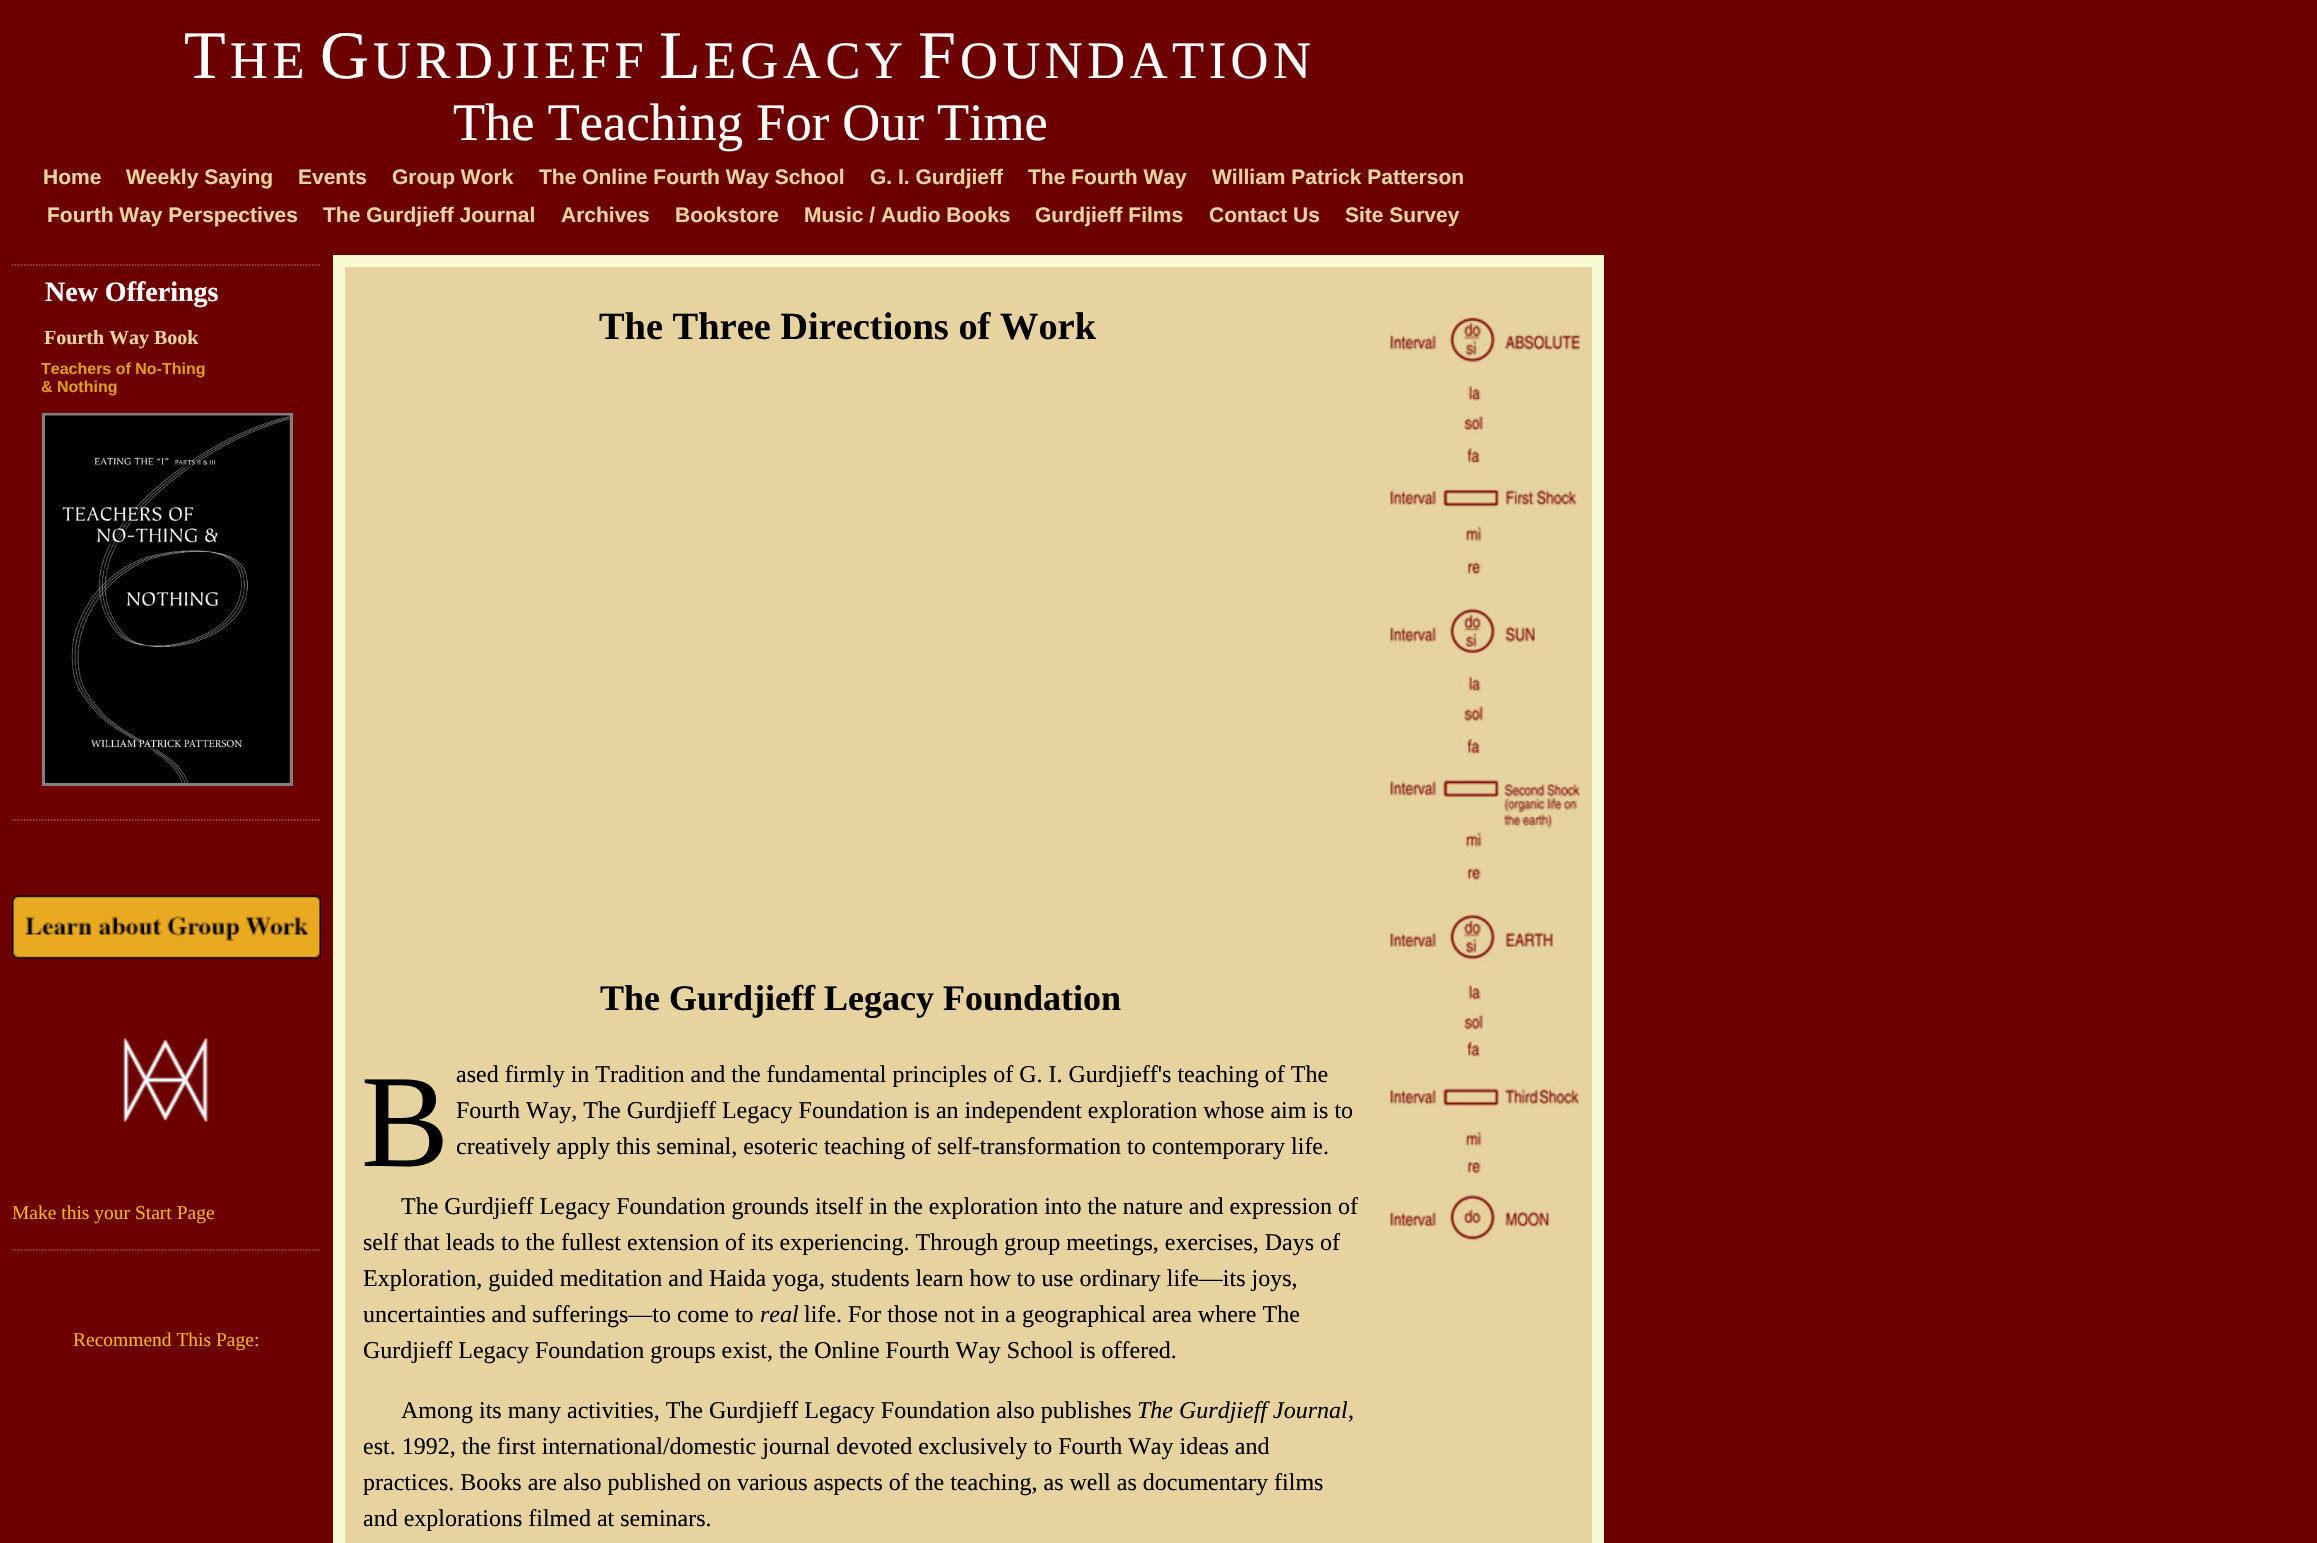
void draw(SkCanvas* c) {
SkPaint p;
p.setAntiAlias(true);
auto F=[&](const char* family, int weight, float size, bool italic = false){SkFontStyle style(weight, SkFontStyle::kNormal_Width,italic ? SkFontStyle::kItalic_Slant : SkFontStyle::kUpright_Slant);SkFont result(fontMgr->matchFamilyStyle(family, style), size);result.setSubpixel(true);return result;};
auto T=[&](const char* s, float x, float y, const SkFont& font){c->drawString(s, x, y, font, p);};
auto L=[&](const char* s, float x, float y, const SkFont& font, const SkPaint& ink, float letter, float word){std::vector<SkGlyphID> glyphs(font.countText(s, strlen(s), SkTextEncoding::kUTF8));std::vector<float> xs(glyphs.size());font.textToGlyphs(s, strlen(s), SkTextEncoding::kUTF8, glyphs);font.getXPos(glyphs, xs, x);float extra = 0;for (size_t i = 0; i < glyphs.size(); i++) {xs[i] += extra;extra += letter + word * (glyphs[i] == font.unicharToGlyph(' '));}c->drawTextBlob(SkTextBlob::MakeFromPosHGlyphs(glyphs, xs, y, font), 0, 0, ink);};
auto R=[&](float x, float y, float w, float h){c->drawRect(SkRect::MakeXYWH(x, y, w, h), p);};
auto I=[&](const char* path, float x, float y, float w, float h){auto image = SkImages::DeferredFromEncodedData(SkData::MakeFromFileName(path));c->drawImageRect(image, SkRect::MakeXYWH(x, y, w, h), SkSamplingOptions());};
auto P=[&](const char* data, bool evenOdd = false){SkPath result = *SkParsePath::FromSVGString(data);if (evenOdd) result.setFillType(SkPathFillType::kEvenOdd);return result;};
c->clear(0xff6c0000);
auto f1 = F("Liberation Serif",400,68);
p.setColor(0xffffffff);
L("T",184,78,f1,p,4.5,0);
auto f2 = F("Liberation Serif",400,52.5);
L("HE",230,78,f2,p,4.5,0);
L("G",320,78,f1,p,4.5,0);
L("URDJIEFF",373,78,f2,p,4.5,0);
L("L",659,78,f1,p,4.5,0);
L("EGACY",704,78,f2,p,4.5,0);
L("F",918,78,f1,p,4.5,0);
L("OUNDATION",960,78,f2,p,4.5,0);
T("The Teaching For Our Time",453,140,f2);
auto f3 = F("Liberation Sans",700,21);
p.setColor(0xffe6d39f);
T("Fourth Way Perspectives",47,222,f3);
T("The Gurdjieff Journal",323,222,f3);
T("Archives",561,222,f3);
T("Bookstore",675,222,f3);
T("Music / Audio Books",804,222,f3);
T("Gurdjieff Films",1035,222,f3);
T("Contact Us",1209,222,f3);
T("Site Survey",1345,222,f3);
T("Home",43,184,f3);
T("Weekly Saying",126,184,f3);
T("Events",298,184,f3);
T("Group Work",392,184,f3);
T("The Online Fourth Way School",539,184,f3);
T("G. I. Gurdjieff",870,184,f3);
T("The Fourth Way",1028,184,f3);
T("William Patrick Patterson",1212,184,f3);
p.setStroke(true);
p.setStrokeWidth(1.5);
p.setColor(0xffa35f34);
p.setPathEffect(SkDashPathEffect::Make({{1.5f,1.5f}}, 0));
c->drawPath(P("M12 265h309"),p);
p.setPathEffect(nullptr);
auto f4 = F("Liberation Serif",700,28);
p.setStroke(false);
p.setColor(0xffffffff);
T("New Offerings",45,301,f4);
auto f5 = F("Liberation Serif",700,20);
p.setColor(0xffe6d39f);
T("Fourth Way Book",44,344,f5);
auto f6 = F("Liberation Sans",700,16);
p.setColor(0xffda9d20);
T("Teachers of No-Thing",41,374,f6);
T("& Nothing",41,392,f6);
p.setStroke(true);
p.setStrokeWidth(3);
p.setColor(0xff808080);
c->drawRect(SkRect::MakeXYWH(43.5,414.5,248,370),p);
I("1.png",45,415,245,368);
p.setStrokeWidth(1.5);
p.setColor(0xffa35f34);
p.setPathEffect(SkDashPathEffect::Make({{1.5f,1.5f}}, 0));
c->drawPath(P("M12 820h309"),p);
p.setPathEffect(nullptr);
I("2.png",12,895,309,64);
I("3.png",123,1037,86,86);
auto f7 = F("Liberation Serif",400,19.5);
p.setStroke(false);
p.setColor(0xffeeb422);
T("Make this your Start Page",12,1219,f7);
p.setStroke(true);
p.setColor(0xffa35f34);
p.setPathEffect(SkDashPathEffect::Make({{1.5f,1.5f}}, 0));
c->drawPath(P("M12 1250h309"),p);
p.setPathEffect(nullptr);
p.setStroke(false);
p.setColor(0xffeeb422);
T("Recommend This Page:",73,1346,f7);
p.setColor(0xfffafad2);
R(333,255,1271,1288);
p.setColor(0xffe6d39f);
R(345,267,1247,1276);
auto f8 = F("Liberation Serif",700,38.4);
p.setColor(0xff000000);
T("The Three Directions of Work",599,339,f8);
auto f9 = F("Liberation Serif",700,36);
T("The Gurdjieff Legacy Foundation",600,1010,f9);
auto f10 = F("Liberation Serif",400,24);
T("ased firmly in Tradition and the fundamental principles of G. I. Gurdjieff's teaching of The",456,1082,f10);
auto f11 = F("Liberation Serif",400,132);
T("B",361,1166,f11);
T("Fourth Way, The Gurdjieff Legacy Foundation is an independent exploration whose aim is to",456,1118,f10);
T("creatively apply this seminal, esoteric teaching of self-transformation to contemporary life.",456,1154,f10);
T("The Gurdjieff Legacy Foundation grounds itself in the exploration into the nature and expression of",401,1214,f10);
T("self that leads to the fullest extension of its experiencing. Through group meetings, exercises, Days of",363,1250,f10);
T("Exploration, guided meditation and Haida yoga, students learn how to use ordinary life—its joys,",363,1286,f10);
T("uncertainties and sufferings—to come to",363,1322,f10);
auto f12 = F("Liberation Serif",400,24,true);
T("real",760,1322,f12);
T("life. For those not in a geographical area where The",804,1322,f10);
T("Gurdjieff Legacy Foundation groups exist, the Online Fourth Way School is offered.",363,1358,f10);
T("Among its many activities, The Gurdjieff Legacy Foundation also publishes",401,1418,f10);
T("The Gurdjieff Journal",1137,1418,f12);
T(",",1348,1418,f10);
T("est. 1992, the first international/domestic journal devoted exclusively to Fourth Way ideas and",363,1454,f10);
T("practices. Books are also published on various aspects of the teaching, as well as documentary films",363,1490,f10);
T("and explorations filmed at seminars.",363,1526,f10);
I("4.png",1387,315,193,926);
}
